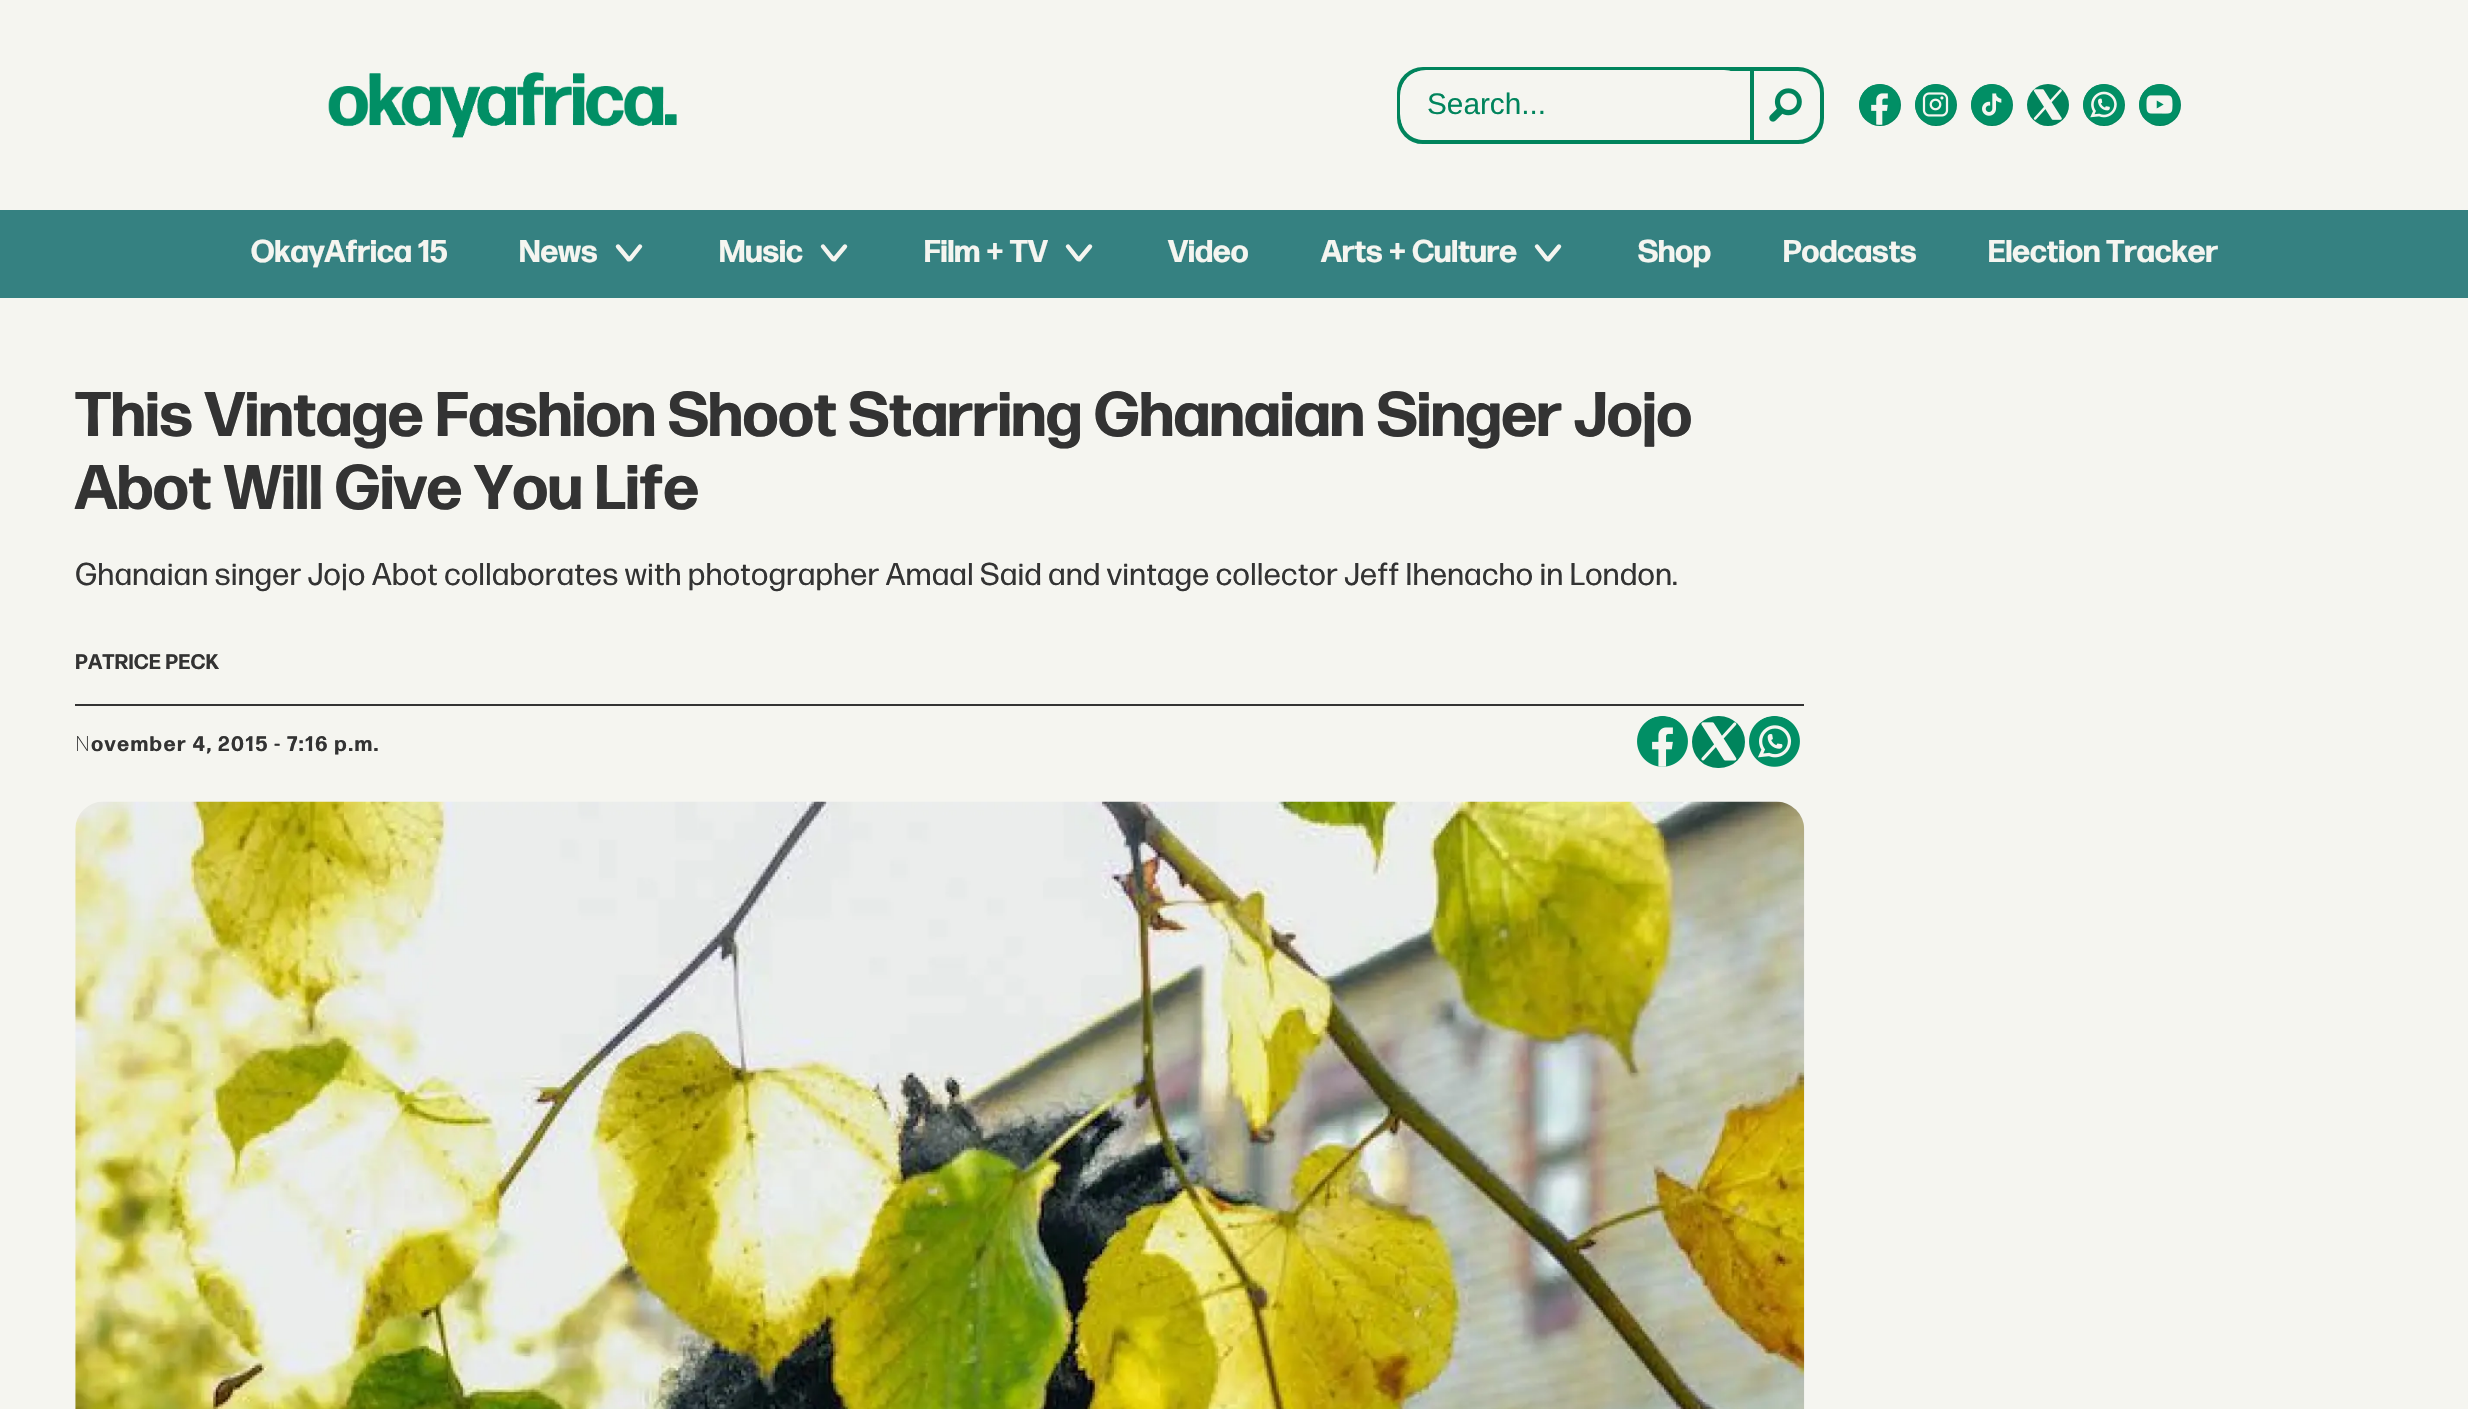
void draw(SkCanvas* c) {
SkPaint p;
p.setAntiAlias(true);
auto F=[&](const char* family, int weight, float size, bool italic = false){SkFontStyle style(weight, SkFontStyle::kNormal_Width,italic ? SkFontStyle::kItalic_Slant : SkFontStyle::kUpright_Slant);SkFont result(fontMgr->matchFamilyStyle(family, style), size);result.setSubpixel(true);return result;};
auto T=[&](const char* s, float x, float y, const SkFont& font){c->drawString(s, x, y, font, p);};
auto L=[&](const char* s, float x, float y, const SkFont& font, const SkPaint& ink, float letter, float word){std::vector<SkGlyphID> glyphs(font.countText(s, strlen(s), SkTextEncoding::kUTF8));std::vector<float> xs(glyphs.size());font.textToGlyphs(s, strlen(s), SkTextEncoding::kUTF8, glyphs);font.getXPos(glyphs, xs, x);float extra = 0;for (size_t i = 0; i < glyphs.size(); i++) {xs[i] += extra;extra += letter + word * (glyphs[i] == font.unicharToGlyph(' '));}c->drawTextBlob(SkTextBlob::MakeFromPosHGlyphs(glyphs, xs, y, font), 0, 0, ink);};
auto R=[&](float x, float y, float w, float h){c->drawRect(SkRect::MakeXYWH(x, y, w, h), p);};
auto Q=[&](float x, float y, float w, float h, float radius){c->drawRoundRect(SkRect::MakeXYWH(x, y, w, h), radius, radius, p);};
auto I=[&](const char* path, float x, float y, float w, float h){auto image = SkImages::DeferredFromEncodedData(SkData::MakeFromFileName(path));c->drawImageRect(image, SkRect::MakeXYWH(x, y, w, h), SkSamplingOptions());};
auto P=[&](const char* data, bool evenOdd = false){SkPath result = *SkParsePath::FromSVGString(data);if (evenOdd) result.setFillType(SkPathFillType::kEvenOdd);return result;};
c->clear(0xfff5f5f0);
I("1.png",328,72,349,66);
p.setStroke(true);
p.setStrokeWidth(4);
p.setColor(0xff00845c);
c->drawRoundRect(SkRect::MakeXYWH(1399,69,423,73),24,24,p);
p.setStroke(false);
p.setColor(0xfff5f5f0);
Q(1400,70,350,70,26);
auto f1 = F("Liberation Sans",400,29.75);
p.setColor(0xff00845c);
T("Search...",1427,114,f1);
R(1750,70,4,70);
I("2.png",1769,88,33,34);
c->drawCircle(1880,105,21,p);
I("3.png",1859,84,41,41);
c->drawCircle(1936,105,21,p);
I("4.png",1915,84,41,41);
c->drawCircle(1992,105,21,p);
I("5.png",1971,84,41,41);
c->drawCircle(2048,105,21,p);
I("6.png",2033,89,29,31);
c->drawCircle(2104,105,21,p);
I("7.png",2083,84,41,41);
c->drawCircle(2160,105,21,p);
I("8.png",2139,84,41,41);
p.setColor(0xff358181);
R(0,210,2468,88);
auto f2 = F("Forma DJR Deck",700,31.5);
p.setColor(0xfff5f5f0);
T("OkayAfrica 15",251,262,f2);
T("News",519,262,f2);
p.setStroke(true);
p.setStrokeWidth(4.4);
p.setStrokeCap(SkPaint::kRound_Cap);
c->drawPath(P("M618 246.5l10.5 12.5c0 .5 1 .5 1.5 0l10-12.5"),p);
p.setStroke(false);
T("Music",719,262,f2);
p.setStroke(true);
c->drawPath(P("M823 246.5l10 12.5c.5 .5 1.5 .5 1.5 0l10.5-12.5"),p);
p.setStroke(false);
T("Film + TV",924,262,f2);
p.setStroke(true);
c->drawPath(P("M1068 246.5l10 12.5c.5 .5 1.5 .5 1.5 0l10.5-12.5"),p);
p.setStroke(false);
T("Video",1168,262,f2);
T("Arts + Culture",1321,262,f2);
p.setStroke(true);
c->drawPath(P("M1537 246.5l10 12.5c.5 .5 1.5 .5 1.5 0l10.5-12.5"),p);
p.setStroke(false);
T("Shop",1638,262,f2);
T("Podcasts",1783,262,f2);
T("Election Tracker",1988,262,f2);
auto f3 = F("Forma DJR Deck",700,63);
p.setColor(0xff333333);
T("This Vintage Fashion Shoot Starring Ghanaian Singer Jojo",75,436,f3);
T("Abot Will Give You Life",75,509,f3);
auto f4 = F("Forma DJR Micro",400,31.5);
T("Ghanaian singer Jojo Abot collaborates with photographer Amaal Said and vintage collector Jeff Ihenacho in London.",75,585,f4);
R(75,704,1729,2);
auto f5 = F("Forma DJR Micro",700,21);
T("PATRICE PECK",75,669,f5);
auto f6 = F("Noto Sans",200,21);
L("N",75,751,f6,p,1.35,0);
L("ovember 4, 2015 - 7:16 p.m.",91,751,f5,p,1.35,0);
I("9.png",1637,716,51,51);
p.setColor(0xff00845c);
Q(1692,716,53,52,26);
I("10.png",1701,722,36,39);
I("11.png",1749,716,51,51);
I("12.png",75,801,1730,608);
}
